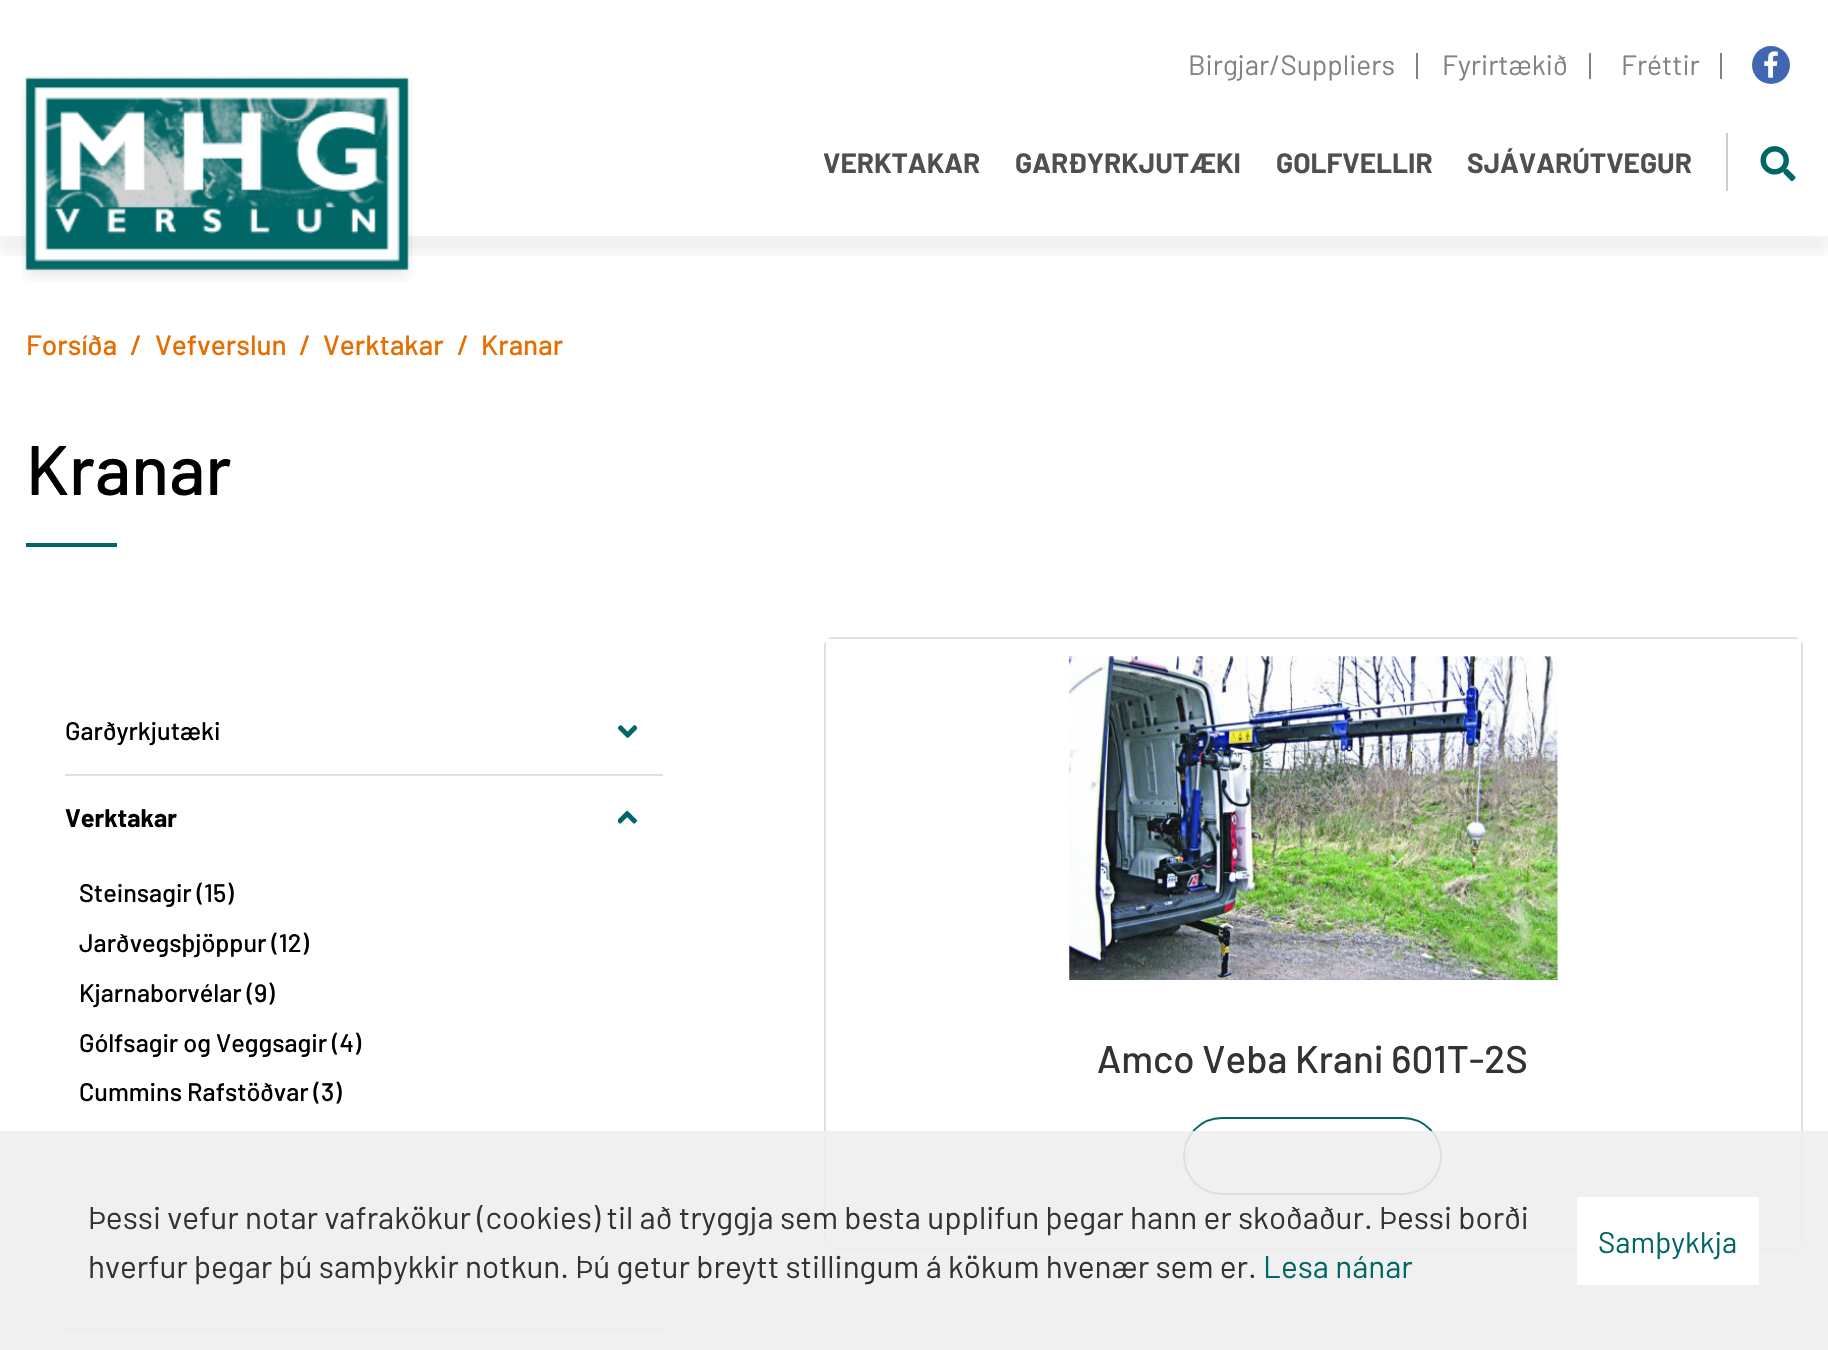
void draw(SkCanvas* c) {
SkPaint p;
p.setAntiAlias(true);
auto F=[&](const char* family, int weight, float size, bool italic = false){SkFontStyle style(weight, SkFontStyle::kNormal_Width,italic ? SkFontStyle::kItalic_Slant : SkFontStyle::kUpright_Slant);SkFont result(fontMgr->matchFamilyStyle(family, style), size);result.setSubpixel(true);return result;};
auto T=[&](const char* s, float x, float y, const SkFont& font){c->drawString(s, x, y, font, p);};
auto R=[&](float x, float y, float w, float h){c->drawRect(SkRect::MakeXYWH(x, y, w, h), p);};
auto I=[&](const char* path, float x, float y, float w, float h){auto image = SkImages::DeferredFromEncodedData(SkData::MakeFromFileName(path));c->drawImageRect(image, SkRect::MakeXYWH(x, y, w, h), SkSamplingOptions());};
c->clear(0xffffffff);
auto f1 = F("Barlow",400,28);
p.setColor(0xff828282);
T("Birgjar/Suppliers",1188,75,f1);
R(1416,53,2,26);
T("Fyrirtækið",1442,75,f1);
R(1589,53,2,26);
T("Fréttir",1621,75,f1);
R(1720,53,2,26);
p.setColor(0xff4267b2);
c->drawCircle(1771,65,19,p);
I("1.png",1764,51,14,27);
c->save();
c->clipRect(SkRect::MakeXYWH(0,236,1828,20));
p.setColor(0x1a000000);
p.setMaskFilter(SkMaskFilter::MakeBlur(kNormal_SkBlurStyle, 9));
c->drawRect(SkRect::MakeXYWH(0,235,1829,14),p);
p.setMaskFilter(nullptr);
c->restore();
I("2.png",21,76,392,206);
auto f2 = F("Barlow",700,28);
p.setColor(0xff4f4f4f);
T("VERKTAKAR",823,173,f2);
T("GARÐYRKJUTÆKI",1015,173,f2);
T("GOLFVELLIR",1276,173,f2);
T("SJÁVARÚTVEGUR",1467,173,f2);
p.setColor(0xffcccccc);
R(1726,133,2,58);
I("3.png",1760,146,36,36);
auto f3 = F("Barlow",500,28);
p.setColor(0xffe86d00);
T("Forsíða",26,355,f3);
T("/",130,355,f3);
T("Vefverslun",155,355,f3);
T("/",299,355,f3);
T("Verktakar",323,355,f3);
T("/",457,355,f3);
T("Kranar",481,355,f3);
auto f4 = F("Barlow",500,70);
p.setColor(0xff000000);
T("Kranar",26,495,f4);
p.setColor(0xff006666);
R(26,543,91,4);
p.setColor(0xffe0e0e0);
R(65,774,598,2);
auto f5 = F("Barlow",500,25.25);
p.setColor(0xff000000);
T("Garðyrkjutæki",65,740,f5);
I("4.png",618,725,19,13);
p.setColor(0xffe0e0e0);
R(65,1328,598,2);
auto f6 = F("Barlow",700,25.25);
p.setColor(0xff000000);
T("Verktakar",65,827,f6);
I("5.png",618,810,19,14);
T("Steinsagir (15)",79,902,f5);
T("Jarðvegsþjöppur (12)",79,952,f5);
T("Kjarnaborvélar (9)",79,1002,f5);
T("Gólfsagir og Veggsagir (4)",79,1052,f5);
T("Cummins Rafstöðvar (3)",79,1101,f5);
p.setStroke(true);
p.setStrokeWidth(2);
p.setColor(0xffe0e0e0);
c->drawRoundRect(SkRect::MakeXYWH(825,638,977,611),8,8,p);
p.setStroke(false);
p.setColor(0xffffffff);
R(826,639,975,6);
I("6.png",1069,656,489,324);
auto f7 = F("Barlow",500,38.5);
p.setColor(0xff333333);
T("Amco Veba Krani 601T-2S",1097,1073,f7);
p.setStroke(true);
p.setColor(0xff006666);
c->drawRoundRect(SkRect::MakeXYWH(1184,1118,257,76),38,38,p);
p.setStroke(false);
p.setColor(0xe6eeeeee);
R(0,1131,1828,219);
auto f8 = F("Barlow",400,31.5);
p.setColor(0xff333333);
T("Þessi vefur notar vafrakökur (cookies) til að tryggja sem besta upplifun þegar hann er skoðaður. Þessi borði",88,1229,f8);
T("hverfur þegar þú samþykkir notkun. Þú getur breytt stillingum á kökum hvenær sem er.",88,1278,f8);
p.setColor(0xff006666);
T("Lesa nánar",1263,1278,f8);
p.setColor(0xffffffff);
R(1577,1197,182,88);
auto f9 = F("Barlow",400,29.75);
p.setColor(0xff006666);
T("Samþykkja",1598,1253,f9);
}
